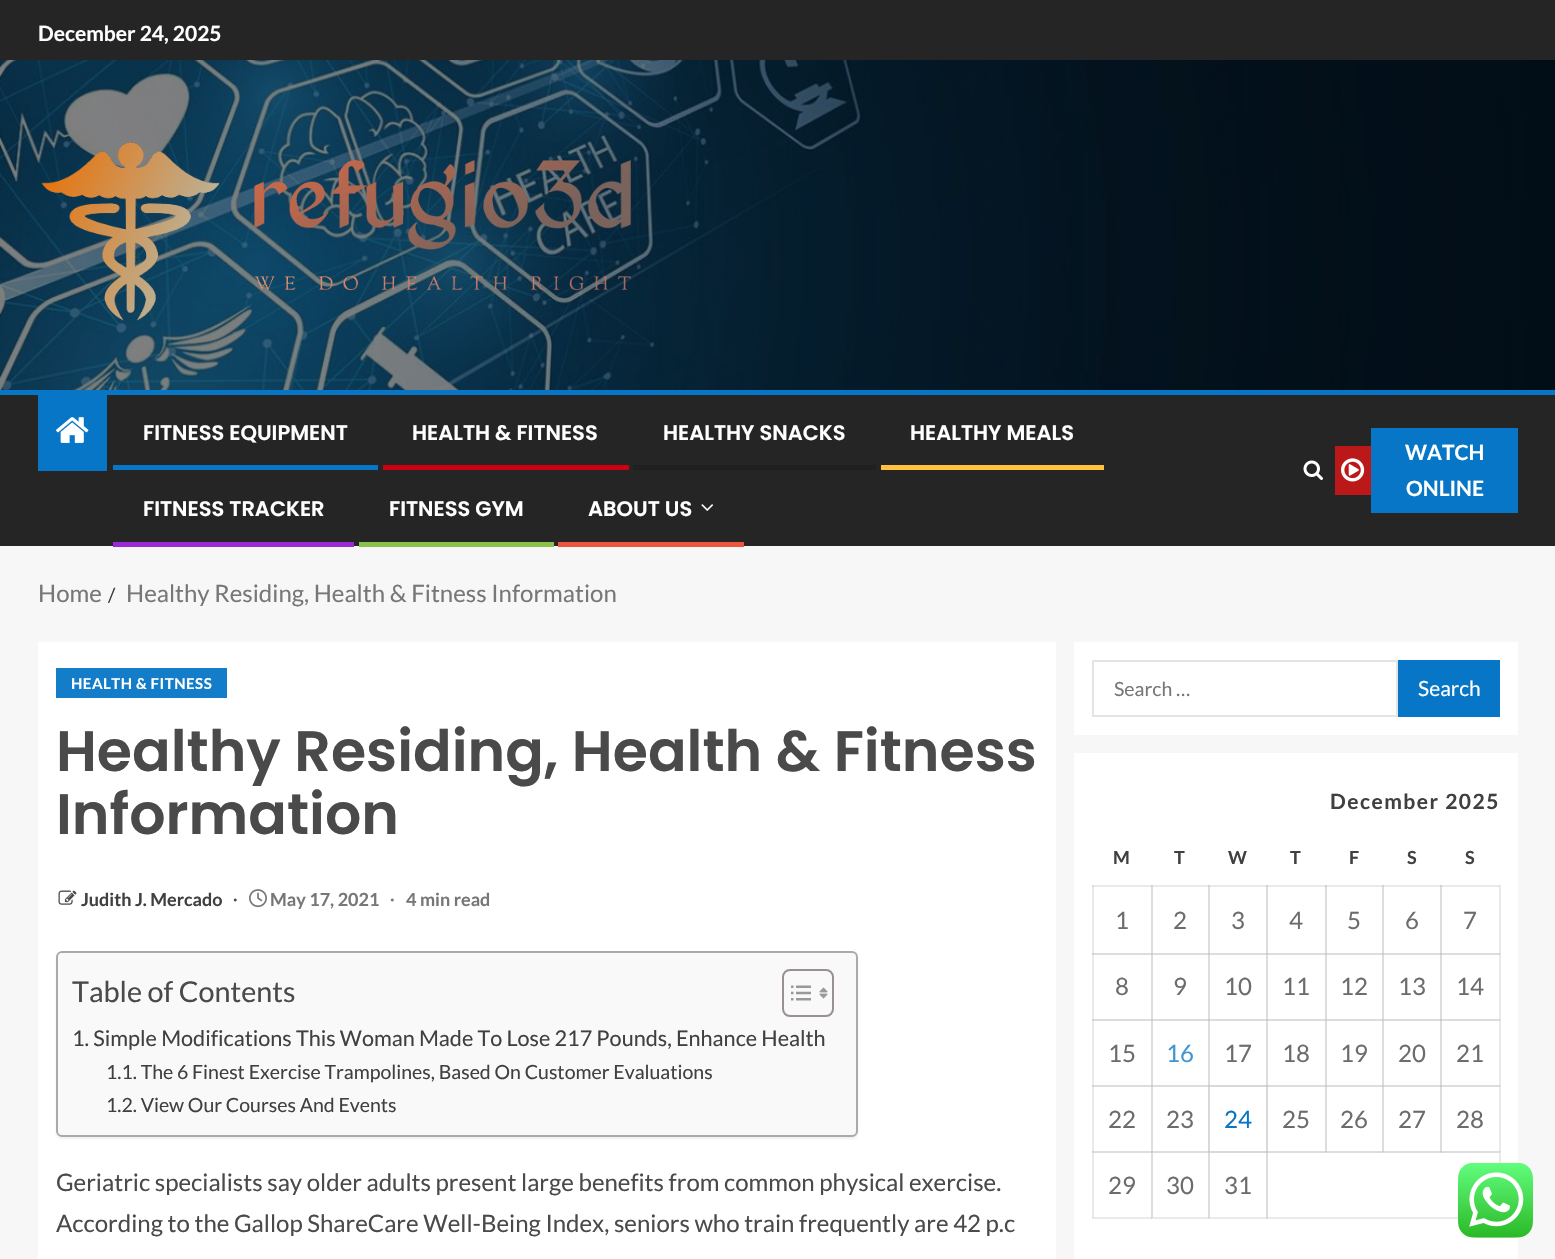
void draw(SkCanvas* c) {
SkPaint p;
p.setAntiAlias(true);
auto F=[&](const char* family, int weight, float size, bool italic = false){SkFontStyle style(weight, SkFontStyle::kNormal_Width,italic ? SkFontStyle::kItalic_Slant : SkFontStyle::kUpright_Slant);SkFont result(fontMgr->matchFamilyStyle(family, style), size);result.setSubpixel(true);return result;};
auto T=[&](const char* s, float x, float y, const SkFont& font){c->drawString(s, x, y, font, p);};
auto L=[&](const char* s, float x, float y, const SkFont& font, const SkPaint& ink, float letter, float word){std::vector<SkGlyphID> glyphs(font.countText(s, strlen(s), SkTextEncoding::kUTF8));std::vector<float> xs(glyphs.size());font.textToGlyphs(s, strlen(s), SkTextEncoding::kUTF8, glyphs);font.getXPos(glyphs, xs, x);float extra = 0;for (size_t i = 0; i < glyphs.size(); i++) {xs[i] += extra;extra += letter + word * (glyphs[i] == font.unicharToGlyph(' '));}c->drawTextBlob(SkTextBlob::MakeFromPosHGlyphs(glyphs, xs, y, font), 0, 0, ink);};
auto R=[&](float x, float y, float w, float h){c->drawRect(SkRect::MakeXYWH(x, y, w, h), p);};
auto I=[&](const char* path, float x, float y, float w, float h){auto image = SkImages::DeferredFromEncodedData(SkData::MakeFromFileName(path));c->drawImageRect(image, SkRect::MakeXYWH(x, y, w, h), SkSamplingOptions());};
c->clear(0xfff7f7f7);
p.setColor(0xff252525);
R(0,0,1555,60);
auto f1 = F("Lato",700,21);
p.setColor(0xffffffff);
T("December 24, 2025",38,41,f1);
I("1.png",0,60,1555,330);
I("2.png",41,142,591,179);
p.setColor(0xff252525);
R(0,395,1555,151);
p.setColor(0xff0776c6);
R(0,390,1555,5);
R(38,395,69,76);
I("3.png",56,417,33,26);
auto f2 = F("Poppins",600,21);
p.setColor(0xffffffff);
T("FITNESS EQUIPMENT",143,440,f2);
p.setColor(0xff0776c6);
R(113,465,265,5);
p.setColor(0xffffffff);
T("HEALTH & FITNESS",412,440,f2);
p.setColor(0xffcc0010);
R(383,465,246,5);
p.setColor(0xffffffff);
T("HEALTHY SNACKS",663,440,f2);
p.setColor(0xff202020);
R(633,465,243,5);
p.setColor(0xffffffff);
T("HEALTHY MEALS",910,440,f2);
p.setColor(0xffffbf3f);
R(881,465,223,5);
p.setColor(0xffffffff);
T("FITNESS TRACKER",143,516,f2);
p.setColor(0xff9c27d9);
R(113,542,241,5);
p.setColor(0xffffffff);
T("FITNESS GYM",389,516,f2);
p.setColor(0xff8bc34a);
R(359,542,195,5);
p.setColor(0xffffffff);
T("ABOUT US",588,516,f2);
I("4.png",701,504,13,7);
p.setColor(0xffed553f);
R(558,542,186,5);
I("5.png",1303,460,20,20);
p.setColor(0xffbb1919);
R(1335,446,36,49);
I("6.png",1341,458,24,24);
p.setColor(0xff0776c6);
R(1371,428,147,85);
p.setColor(0xffffffff);
T("WATCH",1405,460,f1);
T("ONLINE",1406,496,f1);
auto f3 = F("Lato",400,24);
p.setColor(0xff777777);
T("Home",38,602,f3);
auto f4 = F("Lato",400,19.5);
p.setColor(0xff393e46);
T("/",108,602,f4);
p.setColor(0xff777777);
T("Healthy Residing, Health & Fitness Information",126,602,f3);
p.setColor(0xffffffff);
R(38,642,1018,617);
p.setColor(0xff137dc9);
R(56,668,171,30);
auto f5 = F("Lato",700,15);
p.setColor(0xffffffff);
L("HEALTH & FITNESS",71,689,f5,p,.5,0);
auto f6 = F("Poppins",600,57);
p.setColor(0xff4a4a4a);
T("Healthy Residing, Health & Fitness",56,771,f6);
T("Information",56,834,f6);
I("7.png",58,890,19,15);
auto f7 = F("Lato",700,18);
p.setColor(0xff404040);
T("Judith J. Mercado",81,906,f7);
auto f8 = F("Liberation Serif",700,18);
p.setColor(0xff4a4a4a);
T("∙",233,906,f8);
I("8.png",249,889,18,19);
p.setColor(0xff777777);
T("May 17, 2021",270,906,f7);
T("∙",390,906,f8);
T("4 min read",406,906,f7);
p.setColor(0x0d000000);
p.setMaskFilter(SkMaskFilter::MakeBlur(kNormal_SkBlurStyle, 1));
c->drawRoundRect(SkRect::MakeXYWH(56,953,802,186),6,6,p);
p.setMaskFilter(nullptr);
p.setColor(0xfff9f9f9);
c->drawRoundRect(SkRect::MakeXYWH(57,952,800,184),5,5,p);
p.setStroke(true);
p.setStrokeWidth(2);
p.setColor(0xffaaaaaa);
c->drawRoundRect(SkRect::MakeXYWH(57,952,800,184),5,5,p);
auto f9 = F("Lato",400,28.75);
p.setStroke(false);
p.setColor(0xff4a4a4a);
T("Table of Contents",72,1002,f9);
p.setStroke(true);
p.setColor(0xff999191);
c->drawRoundRect(SkRect::MakeXYWH(783,970,50,46),7,7,p);
I("9.png",791,985,20,16);
I("10.png",819,987,9,12);
auto f10 = F("Lato",400,21.65);
p.setStroke(false);
p.setColor(0xff404040);
T("1. Simple Modifications This Woman Made To Lose 217 Pounds, Enhance Health",72,1046,f10);
T("1.1. The 6 Finest Exercise Trampolines, Based On Customer Evaluations",106,1079,f4);
T("1.2. View Our Courses And Events",106,1112,f4);
p.setColor(0xff4a4a4a);
T("Geriatric specialists say older adults present large benefits from common physical exercise.",56,1191,f3);
T("According to the Gallop ShareCare Well-Being Index, seniors who train frequently are 42 p.c",56,1232,f3);
p.setColor(0xffffffff);
R(1074,642,444,93);
p.setStroke(true);
p.setColor(0xffe4e4e4);
c->drawRect(SkRect::MakeXYWH(1093,661,304,55),p);
p.setStroke(false);
p.setColor(0xff777777);
T("Search …",1114,696,f4);
p.setColor(0xff0776c6);
R(1398,660,102,57);
auto f11 = F("Lato",400,21);
p.setColor(0xffffffff);
T("Search",1418,696,f11);
R(1074,753,444,506);
p.setColor(0xffeaeaea);
R(1092,885,2,333);
R(1092,885,60,2);
p.setColor(0xffdddddd);
R(1092,885,2,2);
R(1151,885,2,69);
p.setColor(0xffeaeaea);
R(1151,885,58,2);
p.setColor(0xffd5d5d5);
R(1151,885,2,2);
p.setColor(0xffd0d0d0);
R(1151,885,1,2);
p.setColor(0xffdddddd);
R(1208,885,2,69);
p.setColor(0xffeaeaea);
R(1208,885,60,2);
p.setColor(0xffd5d5d5);
R(1208,885,2,2);
p.setColor(0xffd0d0d0);
R(1208,885,1,2);
p.setColor(0xffdddddd);
R(1266,885,2,69);
p.setColor(0xffeaeaea);
R(1266,885,60,2);
p.setColor(0xffd0d0d0);
R(1266,885,2,2);
p.setColor(0xffdddddd);
R(1325,885,2,69);
p.setColor(0xffeaeaea);
R(1325,885,58,2);
p.setColor(0xffd5d5d5);
R(1325,885,2,2);
p.setColor(0xffd0d0d0);
R(1325,885,1,2);
p.setColor(0xffdddddd);
R(1382,885,2,69);
p.setColor(0xffeaeaea);
R(1382,885,60,2);
p.setColor(0xffd5d5d5);
R(1382,885,2,2);
p.setColor(0xffd0d0d0);
R(1382,885,1,2);
p.setColor(0xffdddddd);
R(1440,885,2,69);
p.setColor(0xffeaeaea);
R(1499,885,2,278);
p.setColor(0xffdddddd);
R(1092,953,60,2);
p.setColor(0xffd5d5d5);
R(1092,954,2,1);
p.setColor(0xffd0d0d0);
R(1092,953,2,1);
p.setColor(0xffdddddd);
R(1151,953,2,67);
R(1151,953,58,2);
p.setColor(0xffd0d0d0);
R(1151,954,2,1);
p.setColor(0xffcbcbcb);
R(1151,953,2,1);
R(1151,953,1,2);
p.setColor(0xffdddddd);
R(1208,953,2,67);
R(1208,953,60,2);
p.setColor(0xffd0d0d0);
R(1208,954,2,1);
p.setColor(0xffcbcbcb);
R(1208,953,2,1);
R(1208,953,1,2);
p.setColor(0xffdddddd);
R(1266,953,2,67);
R(1266,953,60,2);
p.setColor(0xffcbcbcb);
R(1266,954,2,1);
p.setColor(0xffc9c9c9);
R(1266,953,2,1);
p.setColor(0xffdddddd);
R(1325,953,2,67);
R(1325,953,58,2);
p.setColor(0xffd0d0d0);
R(1325,954,2,1);
p.setColor(0xffcbcbcb);
R(1325,953,2,1);
R(1325,953,1,2);
p.setColor(0xffdddddd);
R(1382,953,2,67);
R(1382,953,60,2);
p.setColor(0xffd0d0d0);
R(1382,954,2,1);
p.setColor(0xffcbcbcb);
R(1382,953,2,1);
R(1382,953,1,2);
p.setColor(0xffdddddd);
R(1440,953,2,67);
R(1499,953,2,1);
R(1092,1019,60,2);
p.setColor(0xffd5d5d5);
R(1092,1020,2,1);
p.setColor(0xffd0d0d0);
R(1092,1019,2,1);
p.setColor(0xffdddddd);
R(1151,1019,2,67);
R(1151,1019,58,2);
p.setColor(0xffd0d0d0);
R(1151,1020,2,1);
p.setColor(0xffcbcbcb);
R(1151,1019,2,1);
R(1151,1019,1,2);
p.setColor(0xffdddddd);
R(1208,1019,2,67);
R(1208,1019,60,2);
p.setColor(0xffd0d0d0);
R(1208,1020,2,1);
p.setColor(0xffcbcbcb);
R(1208,1019,2,1);
R(1208,1019,1,2);
p.setColor(0xffdddddd);
R(1266,1019,2,67);
R(1266,1019,60,2);
p.setColor(0xffcbcbcb);
R(1266,1020,2,1);
p.setColor(0xffc9c9c9);
R(1266,1019,2,1);
p.setColor(0xffdddddd);
R(1325,1019,2,67);
R(1325,1019,58,2);
p.setColor(0xffd0d0d0);
R(1325,1020,2,1);
p.setColor(0xffcbcbcb);
R(1325,1019,2,1);
R(1325,1019,1,2);
p.setColor(0xffdddddd);
R(1382,1019,2,67);
R(1382,1019,60,2);
p.setColor(0xffd0d0d0);
R(1382,1020,2,1);
p.setColor(0xffcbcbcb);
R(1382,1019,2,1);
R(1382,1019,1,2);
p.setColor(0xffdddddd);
R(1440,1019,2,67);
R(1499,1019,2,1);
R(1092,1085,60,2);
p.setColor(0xffd5d5d5);
R(1092,1086,2,1);
p.setColor(0xffd0d0d0);
R(1092,1085,2,1);
p.setColor(0xffdddddd);
R(1151,1085,2,67);
R(1151,1085,58,2);
p.setColor(0xffd0d0d0);
R(1151,1086,2,1);
p.setColor(0xffcbcbcb);
R(1151,1085,2,1);
R(1151,1085,1,2);
p.setColor(0xffd9d9d9);
R(1208,1085,2,67);
R(1208,1085,60,2);
p.setColor(0xffcdcdcd);
R(1208,1086,2,1);
p.setColor(0xffcacaca);
R(1208,1085,2,1);
R(1208,1085,1,2);
p.setColor(0xffd9d9d9);
R(1266,1085,2,67);
p.setColor(0xffdddddd);
R(1266,1085,60,2);
p.setColor(0xffcacaca);
R(1266,1086,2,1);
p.setColor(0xffc9c9c9);
R(1266,1085,2,1);
p.setColor(0xffdddddd);
R(1325,1085,2,67);
R(1325,1085,58,2);
p.setColor(0xffd0d0d0);
R(1325,1086,2,1);
p.setColor(0xffcbcbcb);
R(1325,1085,2,1);
R(1325,1085,1,2);
p.setColor(0xffdddddd);
R(1382,1085,2,67);
R(1382,1085,60,2);
p.setColor(0xffd0d0d0);
R(1382,1086,2,1);
p.setColor(0xffcbcbcb);
R(1382,1085,2,1);
R(1382,1085,1,2);
p.setColor(0xffdddddd);
R(1440,1085,2,67);
R(1499,1085,2,1);
p.setColor(0xffeaeaea);
R(1092,1217,60,2);
p.setColor(0xffe0e0e0);
R(1092,1217,2,1);
p.setColor(0xffdddddd);
R(1092,1151,60,2);
p.setColor(0xffd7d7d7);
R(1092,1152,2,1);
p.setColor(0xffd1d1d1);
R(1092,1151,2,1);
p.setColor(0xffdddddd);
R(1151,1151,2,67);
p.setColor(0xffeaeaea);
R(1151,1217,58,2);
p.setColor(0xffdddddd);
R(1151,1217,1,2);
p.setColor(0xffd7d7d7);
R(1151,1217,2,1);
p.setColor(0xffd1d1d1);
R(1151,1217,1,1);
p.setColor(0xffdddddd);
R(1151,1151,58,2);
p.setColor(0xffd1d1d1);
R(1151,1152,2,1);
p.setColor(0xffcbcbcb);
R(1151,1151,2,1);
R(1151,1151,1,2);
p.setColor(0xffdddddd);
R(1208,1151,2,67);
p.setColor(0xffeaeaea);
R(1208,1217,60,2);
p.setColor(0xffdddddd);
R(1208,1217,1,2);
p.setColor(0xffd7d7d7);
R(1208,1217,2,1);
p.setColor(0xffd1d1d1);
R(1208,1217,1,1);
p.setColor(0xffd9d9d9);
R(1208,1151,60,2);
p.setColor(0xffd0d0d0);
R(1208,1152,2,1);
p.setColor(0xffcacaca);
R(1208,1151,2,1);
p.setColor(0xffcbcbcb);
R(1208,1151,1,2);
p.setColor(0xffdddddd);
R(1266,1151,2,67);
p.setColor(0xffeaeaea);
R(1266,1217,192,2);
p.setColor(0xffdddddd);
R(1266,1218,2,1);
p.setColor(0xffd1d1d1);
R(1266,1217,2,1);
p.setColor(0xffdddddd);
R(1499,1151,2,1);
p.setColor(0xff404040);
L("December 2025",1330,809,f1,p,1.5,0);
T("M",1113,864,f7);
T("T",1174,864,f7);
T("W",1228,864,f7);
T("T",1290,864,f7);
T("F",1349,864,f7);
T("S",1407,864,f7);
T("S",1465,864,f7);
p.setColor(0xff6c6c6c);
T("1",1115,929,f3);
T("2",1173,929,f3);
T("3",1231,929,f3);
T("4",1289,929,f3);
T("5",1347,929,f3);
T("6",1405,929,f3);
p.setColor(0xffeaeaea);
R(1440,885,60,2);
p.setColor(0xffd0d0d0);
R(1440,885,2,2);
p.setColor(0xffdddddd);
R(1499,885,1,2);
p.setColor(0xff6c6c6c);
T("7",1463,929,f3);
T("8",1115,995,f3);
T("9",1173,995,f3);
T("10",1224,995,f3);
T("11",1282,995,f3);
T("12",1340,995,f3);
T("13",1398,995,f3);
p.setColor(0xffdddddd);
R(1440,953,60,2);
p.setColor(0xffcbcbcb);
R(1440,954,2,1);
p.setColor(0xffc9c9c9);
R(1440,953,2,1);
p.setColor(0xffd5d5d5);
R(1499,953,1,2);
p.setColor(0xffd0d0d0);
R(1499,953,1,1);
p.setColor(0xff6c6c6c);
T("14",1456,995,f3);
T("15",1108,1062,f3);
p.setColor(0xff4096d3);
T("16",1166,1062,f3);
p.setColor(0xff6c6c6c);
T("17",1224,1062,f3);
T("18",1282,1062,f3);
T("19",1340,1062,f3);
T("20",1398,1062,f3);
p.setColor(0xffdddddd);
R(1440,1019,60,2);
p.setColor(0xffcbcbcb);
R(1440,1020,2,1);
p.setColor(0xffc9c9c9);
R(1440,1019,2,1);
p.setColor(0xffd5d5d5);
R(1499,1019,1,2);
p.setColor(0xffd0d0d0);
R(1499,1019,1,1);
p.setColor(0xff6c6c6c);
T("21",1456,1062,f3);
T("22",1108,1128,f3);
T("23",1166,1128,f3);
p.setColor(0xff0776c6);
T("24",1224,1128,f3);
p.setColor(0xff6c6c6c);
T("25",1282,1128,f3);
T("26",1340,1128,f3);
T("27",1398,1128,f3);
p.setColor(0xffdddddd);
R(1440,1085,60,2);
p.setColor(0xffcbcbcb);
R(1440,1086,2,1);
p.setColor(0xffc9c9c9);
R(1440,1085,2,1);
p.setColor(0xffd5d5d5);
R(1499,1085,1,2);
p.setColor(0xffd0d0d0);
R(1499,1085,1,1);
p.setColor(0xff6c6c6c);
T("28",1456,1128,f3);
p.setColor(0xffdddddd);
R(1266,1151,234,2);
p.setColor(0xffd5d5d5);
R(1325,1151,1,2);
p.setColor(0xffd0d0d0);
R(1325,1151,2,1);
p.setColor(0xffcdcdcd);
R(1325,1151,1,1);
p.setColor(0xffd5d5d5);
R(1382,1151,1,2);
p.setColor(0xffd0d0d0);
R(1382,1151,2,1);
p.setColor(0xffcdcdcd);
R(1382,1151,1,1);
p.setColor(0xffd5d5d5);
R(1440,1152,2,1);
p.setColor(0xffcdcdcd);
R(1440,1151,2,1);
p.setColor(0xffcbcbcb);
R(1266,1152,2,1);
p.setColor(0xffc9c9c9);
R(1266,1151,2,1);
p.setColor(0xffd7d7d7);
R(1499,1151,1,2);
p.setColor(0xffd1d1d1);
R(1499,1151,1,1);
p.setColor(0xff6c6c6c);
T("29",1108,1194,f3);
T("30",1166,1194,f3);
T("31",1224,1194,f3);
I("11.png",1458,1163,75,75);
}
